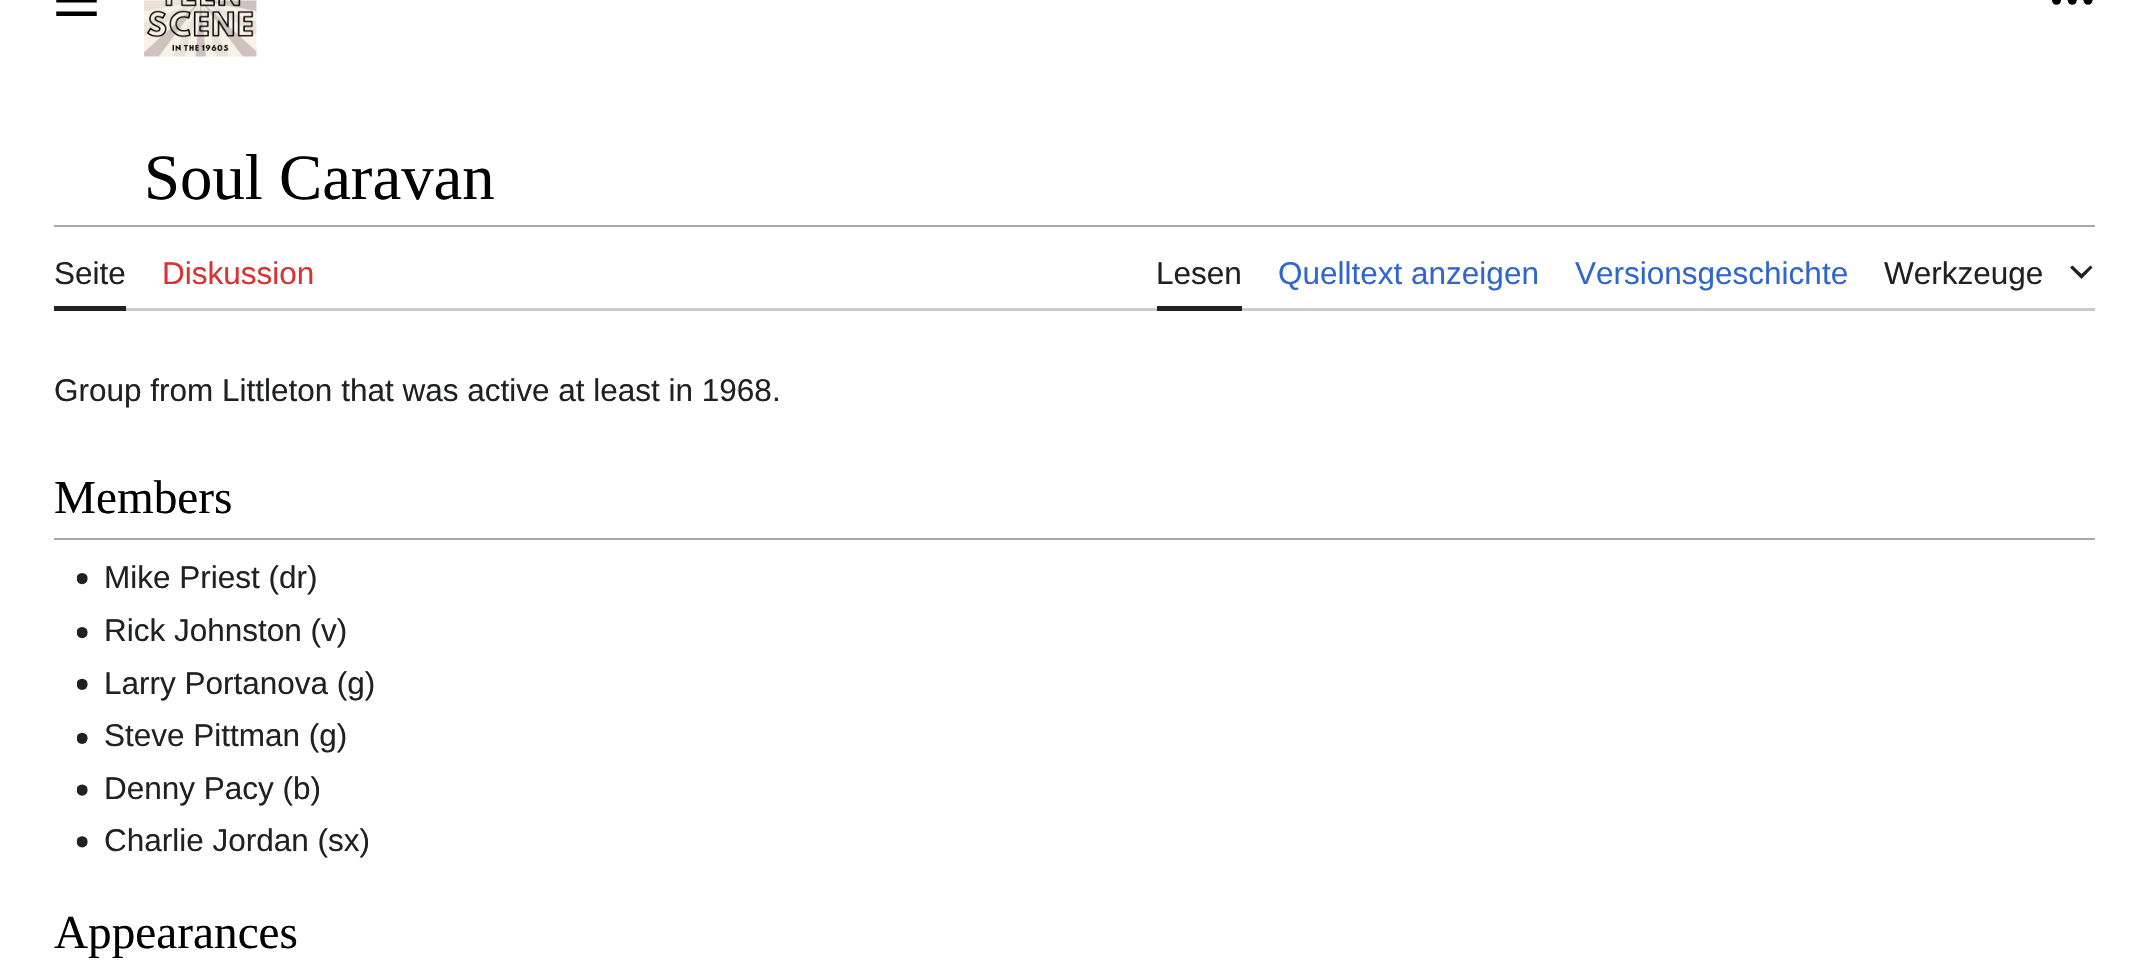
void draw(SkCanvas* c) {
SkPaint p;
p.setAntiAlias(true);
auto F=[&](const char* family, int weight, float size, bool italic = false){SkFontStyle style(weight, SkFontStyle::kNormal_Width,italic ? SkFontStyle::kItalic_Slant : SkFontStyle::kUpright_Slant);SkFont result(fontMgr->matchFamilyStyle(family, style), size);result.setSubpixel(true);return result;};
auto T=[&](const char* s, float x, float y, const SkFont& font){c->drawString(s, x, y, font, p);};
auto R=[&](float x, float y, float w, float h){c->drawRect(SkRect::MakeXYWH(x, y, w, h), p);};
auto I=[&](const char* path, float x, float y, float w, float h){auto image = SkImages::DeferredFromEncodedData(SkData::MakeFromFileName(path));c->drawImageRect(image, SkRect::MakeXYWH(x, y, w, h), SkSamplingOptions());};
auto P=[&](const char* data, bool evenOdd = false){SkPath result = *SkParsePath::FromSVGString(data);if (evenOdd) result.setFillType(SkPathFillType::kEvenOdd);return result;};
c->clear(0xffffffff);
I("1.png",56,0,41,16);
I("2.png",144,0,113,57);
I("3.png",2051,0,42,5);
auto f1 = F("Liberation Serif",400,64.75);
p.setColor(0xff000000);
T("Soul Caravan",144,199,f1);
p.setColor(0xffa2a9b1);
R(54,225,2041,2);
p.setColor(0xffc8ccd1);
c->drawPath(P("M54 308v3h2041v-81v78z"),p);
p.setColor(0xff202122);
R(54,306,72,5);
auto f2 = F("Liberation Sans",400,31.5);
T("Seite",54,284,f2);
p.setColor(0xffd73333);
T("Diskussion",162,284,f2);
p.setColor(0xff202122);
R(1157,306,85,5);
T("Lesen",1156,284,f2);
p.setColor(0xff3366cc);
T("Quelltext anzeigen",1278,284,f2);
T("Versionsgeschichte",1575,284,f2);
p.setColor(0xff202122);
T("Werkzeuge",1884,284,f2);
c->drawPath(P("M2092.5 267.5l-2-2l-9 8.5l-9-8.5l-2.5 2l11.5 11.5z"),p);
T("Group from Littleton that was active at least in 1968.",54,401,f2);
p.setColor(0xffa2a9b1);
R(54,538,2041,2);
auto f3 = F("Liberation Serif",400,47.25);
p.setColor(0xff000000);
T("Members",54,513,f3);
I("4.png",77,573,11,12);
p.setColor(0xff202122);
T("Mike Priest (dr)",104,588,f2);
I("4.png",77,627,11,12);
T("Rick Johnston (v)",104,641,f2);
I("5.png",77,678,11,12);
T("Larry Portanova (g)",104,694,f2);
I("5.png",77,732,11,12);
T("Steve Pittman (g)",104,746,f2);
I("6.png",77,784,11,12);
T("Denny Pacy (b)",104,799,f2);
I("7.png",77,836,11,12);
T("Charlie Jordan (sx)",104,851,f2);
p.setColor(0xff000000);
T("Appearances",54,948,f3);
}
